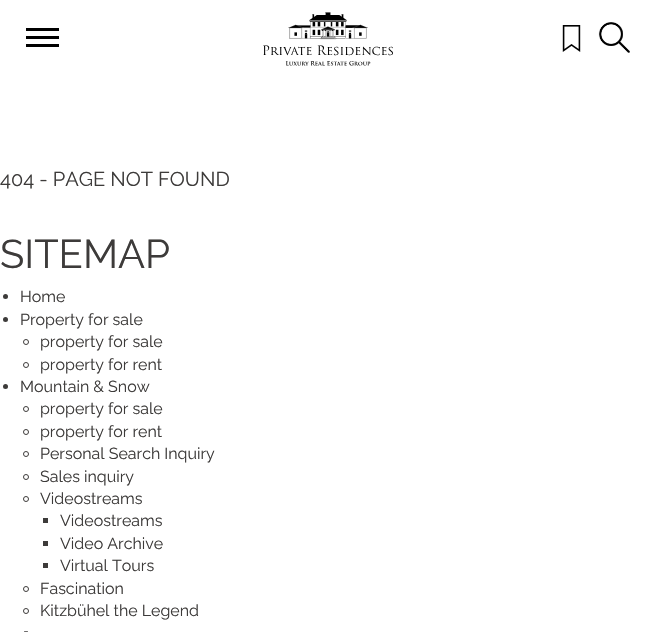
void draw(SkCanvas* c) {
SkPaint p;
p.setAntiAlias(true);
auto F=[&](const char* family, int weight, float size, bool italic = false){SkFontStyle style(weight, SkFontStyle::kNormal_Width,italic ? SkFontStyle::kItalic_Slant : SkFontStyle::kUpright_Slant);SkFont result(fontMgr->matchFamilyStyle(family, style), size);result.setSubpixel(true);return result;};
auto T=[&](const char* s, float x, float y, const SkFont& font){c->drawString(s, x, y, font, p);};
auto R=[&](float x, float y, float w, float h){c->drawRect(SkRect::MakeXYWH(x, y, w, h), p);};
auto I=[&](const char* path, float x, float y, float w, float h){auto image = SkImages::DeferredFromEncodedData(SkData::MakeFromFileName(path));c->drawImageRect(image, SkRect::MakeXYWH(x, y, w, h), SkSamplingOptions());};
c->clear(0xffffffff);
p.setColor(0xff000000);
R(26,28,33,3);
R(26,36,33,3);
R(26,44,33,3);
I("1.png",263,12,130,54);
I("2.png",562,25,19,27);
I("3.png",598,22,32,31);
auto f1 = F("Raleway",400,20);
p.setColor(0xff3d3b3a);
T("404 - PAGE NOT FOUND",0,186,f1);
auto f2 = F("Raleway",400,40);
T("SITEMAP",0,268,f2);
c->drawCircle(5.5,296.5,2.5,p);
auto f3 = F("Raleway",400,16);
T("Home",20,302,f3);
c->drawCircle(5.5,319.5,2.5,p);
T("Property for sale",20,325,f3);
p.setStroke(true);
p.setStrokeWidth(1);
c->drawCircle(26,342,2.5,p);
p.setStroke(false);
T("property for sale",40,347,f3);
p.setStroke(true);
c->drawCircle(26,365,2.5,p);
p.setStroke(false);
T("property for rent",40,370,f3);
c->drawCircle(5.5,386.5,2.5,p);
T("Mountain & Snow",20,392,f3);
p.setStroke(true);
c->drawCircle(26,409,2.5,p);
p.setStroke(false);
T("property for sale",40,414,f3);
p.setStroke(true);
c->drawCircle(26,432,2.5,p);
p.setStroke(false);
T("property for rent",40,437,f3);
p.setStroke(true);
c->drawCircle(26,454,2.5,p);
p.setStroke(false);
T("Personal Search Inquiry",40,459,f3);
p.setStroke(true);
c->drawCircle(26,477,2.5,p);
p.setStroke(false);
T("Sales inquiry",40,482,f3);
p.setStroke(true);
c->drawCircle(26,499,2.5,p);
p.setStroke(false);
T("Videostreams",40,504,f3);
R(43,518,5,5);
T("Videostreams",60,526,f3);
R(43,541,5,5);
T("Video Archive",60,549,f3);
R(43,563,5,5);
T("Virtual Tours",60,571,f3);
p.setStroke(true);
c->drawCircle(26,589,2.5,p);
p.setStroke(false);
T("Fascination",40,594,f3);
p.setStroke(true);
c->drawCircle(26,611,2.5,p);
p.setStroke(false);
T("Kitzbühel the Legend",40,616,f3);
p.setStroke(true);
c->drawRoundRect(SkRect::MakeXYWH(23.5,631.5,5,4),2.5,2.5,p);
}
